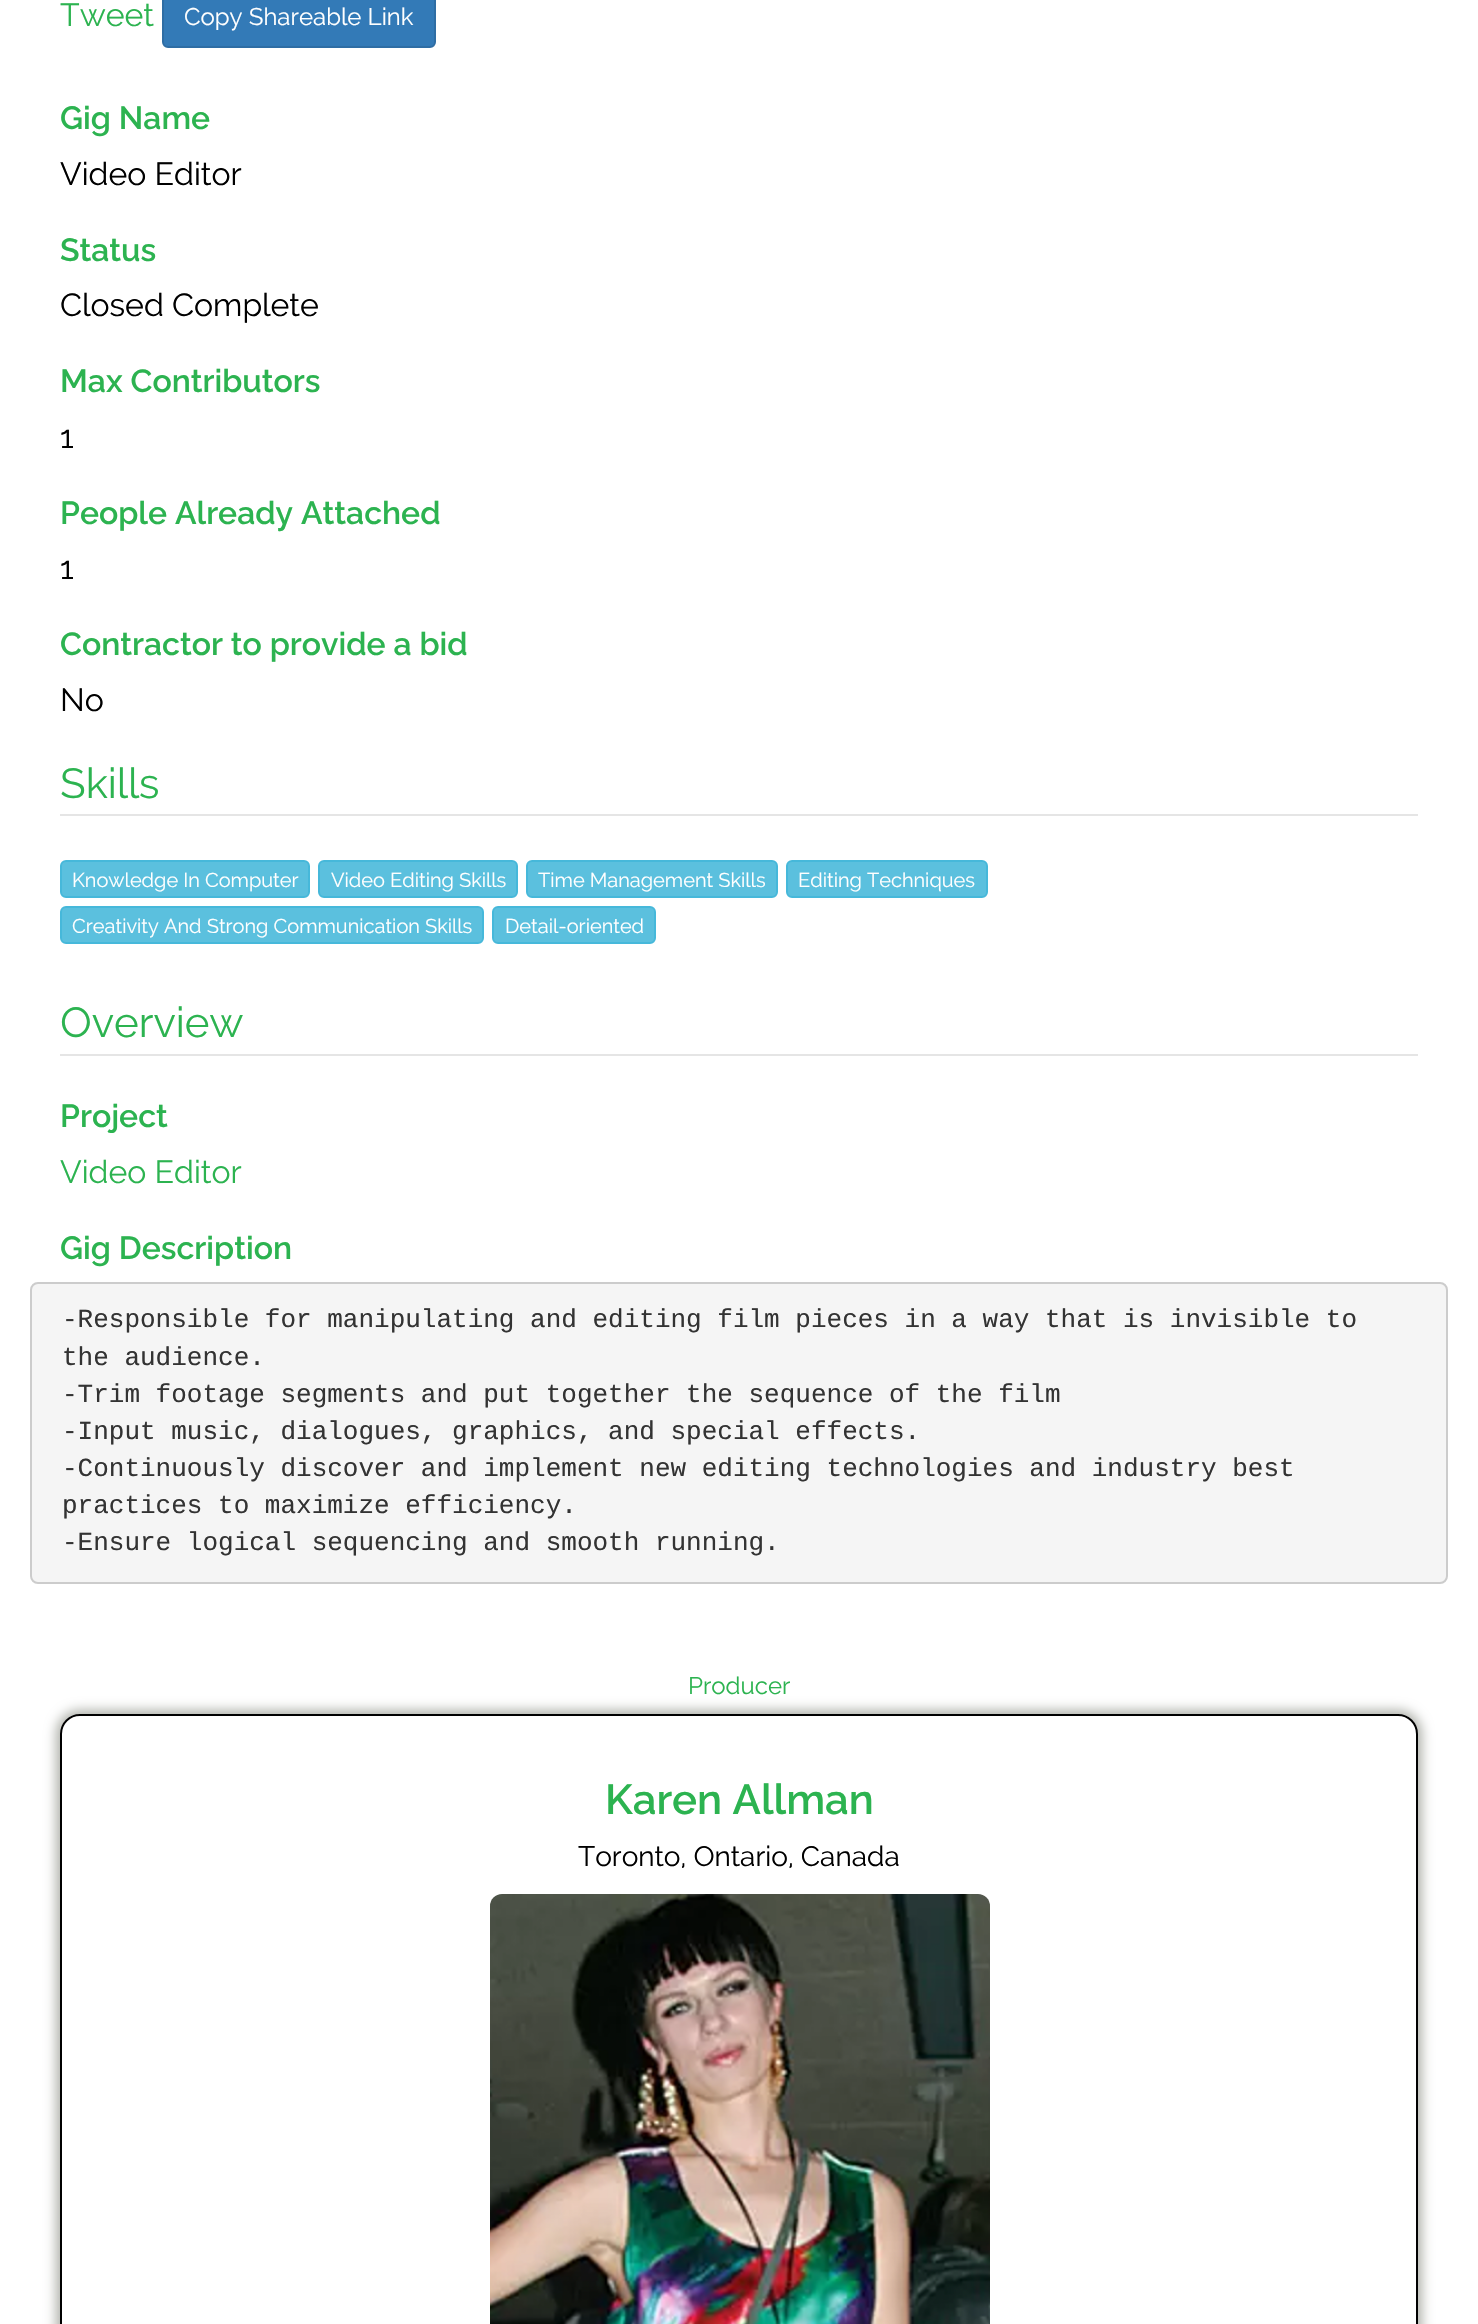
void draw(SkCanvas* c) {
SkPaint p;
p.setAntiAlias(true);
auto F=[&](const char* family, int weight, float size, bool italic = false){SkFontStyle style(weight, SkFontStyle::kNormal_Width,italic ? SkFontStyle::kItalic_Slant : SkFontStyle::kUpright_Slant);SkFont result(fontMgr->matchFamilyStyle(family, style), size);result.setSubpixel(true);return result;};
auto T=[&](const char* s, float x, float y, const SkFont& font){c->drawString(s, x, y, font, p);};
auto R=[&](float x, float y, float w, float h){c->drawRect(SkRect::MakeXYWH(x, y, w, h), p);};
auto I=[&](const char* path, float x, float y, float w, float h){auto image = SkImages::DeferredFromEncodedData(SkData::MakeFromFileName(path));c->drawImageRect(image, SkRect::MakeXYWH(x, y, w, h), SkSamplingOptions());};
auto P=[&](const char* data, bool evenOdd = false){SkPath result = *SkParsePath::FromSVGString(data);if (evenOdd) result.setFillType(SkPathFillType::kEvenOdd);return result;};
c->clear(0xffffffff);
auto f1 = F("Raleway",400,32);
p.setColor(0xff2cb350);
T("Tweet",60,26,f1);
p.setColor(0xff337ab7);
c->drawRoundRect(SkRect::MakeXYWH(163,-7,272,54),5,5,p);
p.setStroke(true);
p.setStrokeWidth(2);
p.setColor(0xff2e6da4);
c->drawRoundRect(SkRect::MakeXYWH(163,-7,272,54),5,5,p);
auto f2 = F("Raleway",400,24);
p.setStroke(false);
p.setColor(0xffffffff);
T("Copy Shareable Link",184,25,f2);
auto f3 = F("Raleway",600,32);
p.setColor(0xff2cb350);
T("Gig Name",60,129,f3);
p.setColor(0xff000000);
T("Video Editor",60,185,f1);
p.setColor(0xff2cb350);
T("Status",60,261,f3);
p.setColor(0xff000000);
T("Closed Complete",60,316,f1);
p.setColor(0xff2cb350);
T("Max Contributors",60,392,f3);
p.setColor(0xff000000);
T("1",60,448,f1);
p.setColor(0xff2cb350);
T("People Already Attached",60,524,f3);
p.setColor(0xff000000);
T("1",60,579,f1);
p.setColor(0xff2cb350);
T("Contractor to provide a bid",60,655,f3);
p.setColor(0xff000000);
T("No",60,711,f1);
p.setColor(0xffe5e5e5);
R(60,814,1358,2);
auto f4 = F("Raleway",400,42);
p.setColor(0xff2cb350);
T("Skills",60,798,f4);
p.setColor(0xff5bc0de);
c->drawRoundRect(SkRect::MakeXYWH(61,861,248,36),5,5,p);
p.setStroke(true);
p.setColor(0xff46b8da);
c->drawRoundRect(SkRect::MakeXYWH(61,861,248,36),5,5,p);
auto f5 = F("Raleway",400,20);
p.setStroke(false);
p.setColor(0xffffffff);
T("Knowledge In Computer",72,887,f5);
p.setColor(0xff5bc0de);
c->drawRoundRect(SkRect::MakeXYWH(319,861,198,36),5,5,p);
p.setStroke(true);
p.setColor(0xff46b8da);
c->drawRoundRect(SkRect::MakeXYWH(319,861,198,36),5,5,p);
p.setStroke(false);
p.setColor(0xffffffff);
T("Video Editing Skills",331,887,f5);
p.setColor(0xff5bc0de);
c->drawRoundRect(SkRect::MakeXYWH(527,861,250,36),5,5,p);
p.setStroke(true);
p.setColor(0xff46b8da);
c->drawRoundRect(SkRect::MakeXYWH(527,861,250,36),5,5,p);
p.setStroke(false);
p.setColor(0xffffffff);
T("Time Management Skills",538,887,f5);
p.setColor(0xff5bc0de);
c->drawRoundRect(SkRect::MakeXYWH(787,861,200,36),5,5,p);
p.setStroke(true);
p.setColor(0xff46b8da);
c->drawRoundRect(SkRect::MakeXYWH(787,861,200,36),5,5,p);
p.setStroke(false);
p.setColor(0xffffffff);
T("Editing Techniques",798,887,f5);
p.setColor(0xff5bc0de);
c->drawRoundRect(SkRect::MakeXYWH(61,907,422,36),5,5,p);
p.setStroke(true);
p.setColor(0xff46b8da);
c->drawRoundRect(SkRect::MakeXYWH(61,907,422,36),5,5,p);
p.setStroke(false);
p.setColor(0xffffffff);
T("Creativity And Strong Communication Skills",72,933,f5);
p.setColor(0xff5bc0de);
c->drawRoundRect(SkRect::MakeXYWH(493,907,162,36),5,5,p);
p.setStroke(true);
p.setColor(0xff46b8da);
c->drawRoundRect(SkRect::MakeXYWH(493,907,162,36),5,5,p);
p.setStroke(false);
p.setColor(0xffffffff);
T("Detail-oriented",505,933,f5);
p.setColor(0xffe5e5e5);
R(60,1054,1358,2);
p.setColor(0xff2cb350);
T("Overview",60,1037,f4);
T("Project",60,1127,f3);
T("Video Editor",60,1183,f1);
T("Gig Description",60,1259,f3);
p.setColor(0xfff5f5f5);
c->drawRoundRect(SkRect::MakeXYWH(31,1283,1416,300),7,7,p);
p.setStroke(true);
p.setColor(0xffcccccc);
c->drawRoundRect(SkRect::MakeXYWH(31,1283,1416,300),7,7,p);
auto f6 = F("Liberation Mono",400,26);
p.setStroke(false);
p.setColor(0xff333333);
T("-Responsible for manipulating and editing film pieces in a way that is invisible to",62,1327,f6);
T("the audience.",62,1365,f6);
T("-Trim footage segments and put together the sequence of the film",62,1402,f6);
T("-Input music, dialogues, graphics, and special effects.",62,1439,f6);
T("-Continuously discover and implement new editing technologies and industry best",62,1476,f6);
T("practices to maximize efficiency.",62,1513,f6);
T("-Ensure logical sequencing and smooth running.",62,1550,f6);
c->save();
c->clipPath(P("M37 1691h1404v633h-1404zm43 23h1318c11 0 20 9 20 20v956c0 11-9 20-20 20h-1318c-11 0-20-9-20-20v-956c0-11 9-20 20-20z",true),true);
p.setColor(0xffb0b2ab);
p.setMaskFilter(SkMaskFilter::MakeBlur(kNormal_SkBlurStyle, 6));
c->drawRoundRect(SkRect::MakeXYWH(56,1710,1366,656),24,24,p);
p.setMaskFilter(nullptr);
c->restore();
p.setColor(0xff2cb350);
T("Producer",688,1694,f2);
p.setStroke(true);
p.setColor(0xff000000);
c->drawRoundRect(SkRect::MakeXYWH(61,1715,1356,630),19,19,p);
auto f7 = F("Raleway",600,42);
p.setStroke(false);
p.setColor(0xff2cb350);
T("Karen Allman",605,1814,f7);
auto f8 = F("Raleway",400,28);
p.setColor(0xff000000);
T("Toronto, Ontario, Canada",578,1866,f8);
I("1.png",490,1894,500,430);
}
